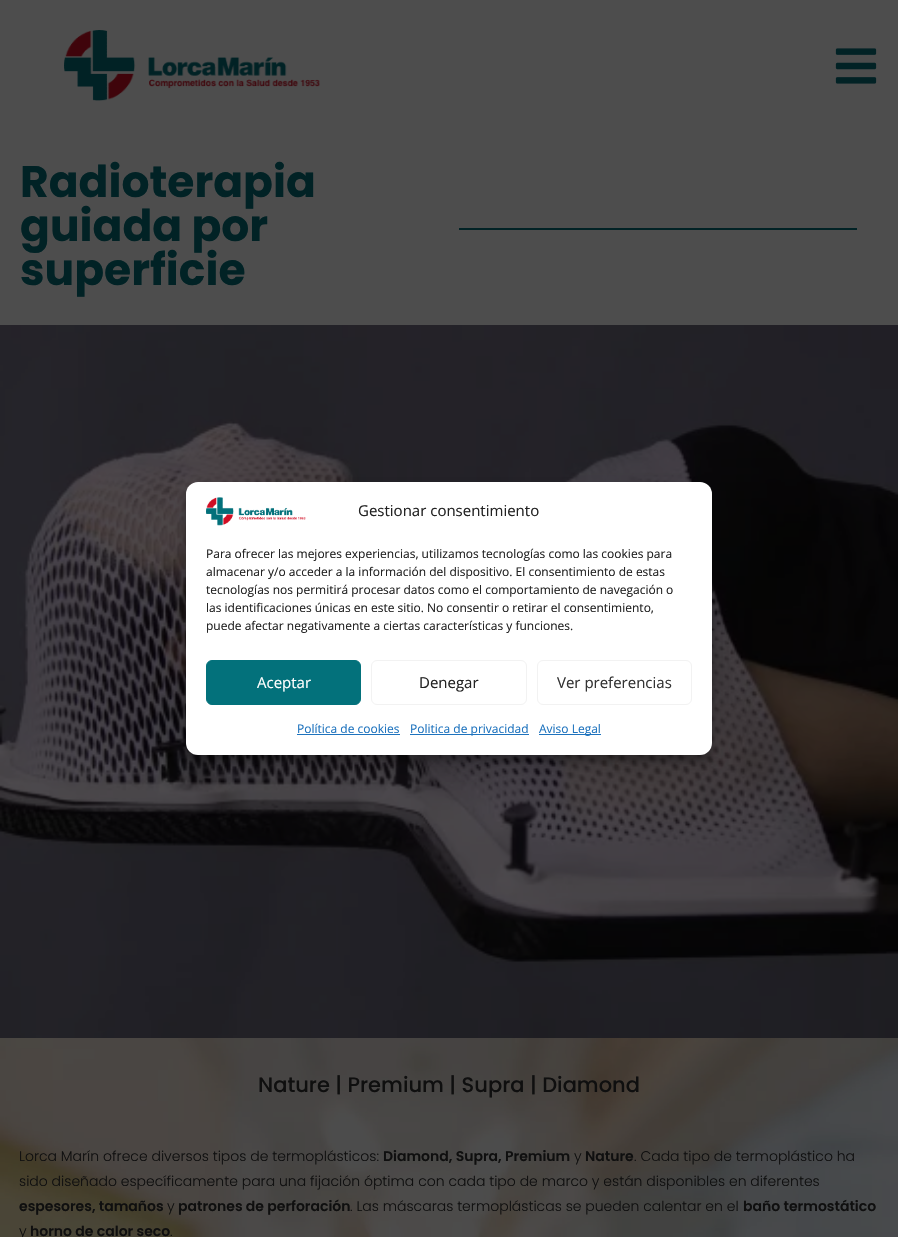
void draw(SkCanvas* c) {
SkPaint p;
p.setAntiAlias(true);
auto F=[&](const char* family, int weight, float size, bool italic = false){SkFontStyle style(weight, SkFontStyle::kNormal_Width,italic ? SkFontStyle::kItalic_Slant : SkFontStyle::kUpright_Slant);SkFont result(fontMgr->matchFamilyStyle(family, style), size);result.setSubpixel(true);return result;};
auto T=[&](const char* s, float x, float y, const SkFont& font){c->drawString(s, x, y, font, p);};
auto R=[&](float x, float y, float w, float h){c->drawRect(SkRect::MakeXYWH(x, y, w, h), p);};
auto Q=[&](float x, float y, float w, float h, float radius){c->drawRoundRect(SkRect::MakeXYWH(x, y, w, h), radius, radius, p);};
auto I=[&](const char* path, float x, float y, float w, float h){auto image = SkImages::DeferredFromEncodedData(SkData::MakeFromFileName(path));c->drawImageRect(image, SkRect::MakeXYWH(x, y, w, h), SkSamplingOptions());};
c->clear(0xff4d4d4d);
I("1.png",64,30,256,71);
I("2.png",835,48,42,36);
auto f1 = F("Poppins",700,44);
p.setColor(0xff012225);
T("Radioterapia",20,197,f1);
T("guiada por",20,241,f1);
T("superficie",20,285,f1);
R(459,228,398,2);
I("3.png",0,325,898,713);
I("4.png",0,1038,898,199);
auto f2 = F("Poppins",500,21);
p.setColor(0xff0f0f0f);
T("Nature | Premium | Supra | Diamond",258,1092,f2);
auto f3 = F("Poppins",300,14);
T("Lorca Marín ofrece diversos tipos de termoplásticos:",19,1161,f3);
auto f4 = F("Poppins",600,14);
T("Diamond, Supra, Premium",383,1161,f4);
T("y",574,1161,f3);
T("Nature",585,1161,f4);
T(". Cada tipo de termoplástico ha",634,1161,f3);
T("sido diseñado específicamente para una fijación óptima con cada tipo de marco y están disponibles en diferentes",19,1186,f3);
T("espesores, tamaños",19,1211,f4);
T("y",167,1211,f3);
T("patrones de perforación",178,1211,f4);
T(". Las máscaras termoplásticas se pueden calentar en el",350,1211,f3);
T("baño termostático",743,1211,f4);
T("y",19,1236,f3);
T("horno de calor seco",30,1236,f4);
T(".",170,1236,f3);
p.setColor(0x3b000000);
p.setMaskFilter(SkMaskFilter::MakeBlur(kNormal_SkBlurStyle, 3));
c->drawRoundRect(SkRect::MakeXYWH(186,488,526,273),12,12,p);
p.setMaskFilter(nullptr);
p.setColor(0x30000000);
p.setMaskFilter(SkMaskFilter::MakeBlur(kNormal_SkBlurStyle, 10));
c->drawRoundRect(SkRect::MakeXYWH(186,492,526,273),12,12,p);
p.setMaskFilter(nullptr);
p.setColor(0xffffffff);
Q(186,482,526,273,12);
I("5.png",206,497,100,29);
auto f5 = F("Open Sans",400,15);
p.setColor(0xff222222);
T("Gestionar consentimiento",358,516,f5);
auto f6 = F("Open Sans",400,12);
T("Para ofrecer las mejores experiencias, utilizamos tecnologías como las cookies para",206,558,f6);
T("almacenar y/o acceder a la información del dispositivo. El consentimiento de estas",206,576,f6);
T("tecnologías nos permitirá procesar datos como el comportamiento de navegación o",206,594,f6);
T("las identificaciones únicas en este sitio. No consentir o retirar el consentimiento,",206,612,f6);
T("puede afectar negativamente a ciertas características y funciones.",206,630,f6);
p.setColor(0xff03717b);
c->drawRoundRect(SkRect::MakeXYWH(206.5,660.5,154,44),5.5,5.5,p);
p.setStroke(true);
p.setStrokeWidth(1);
c->drawRoundRect(SkRect::MakeXYWH(206.5,660.5,154,44),5.5,5.5,p);
p.setStroke(false);
p.setColor(0xffffffff);
T("Aceptar",257,688,f5);
p.setStroke(true);
p.setColor(0xfff2f2f2);
c->drawRoundRect(SkRect::MakeXYWH(371.5,660.5,155,44),5.5,5.5,p);
p.setStroke(false);
p.setColor(0xff222222);
T("Denegar",419,688,f5);
p.setStroke(true);
p.setColor(0xfff2f2f2);
c->drawRoundRect(SkRect::MakeXYWH(537.5,660.5,154,44),5.5,5.5,p);
p.setStroke(false);
p.setColor(0xff333333);
T("Ver preferencias",557,688,f5);
p.setColor(0xff1e73be);
T("Política de cookies",297,733,f6);
R(297,734,103,1);
R(410,734,119,1);
T("Politica de privacidad",410,733,f6);
R(539,734,62,1);
T("Aviso Legal",539,733,f6);
}
